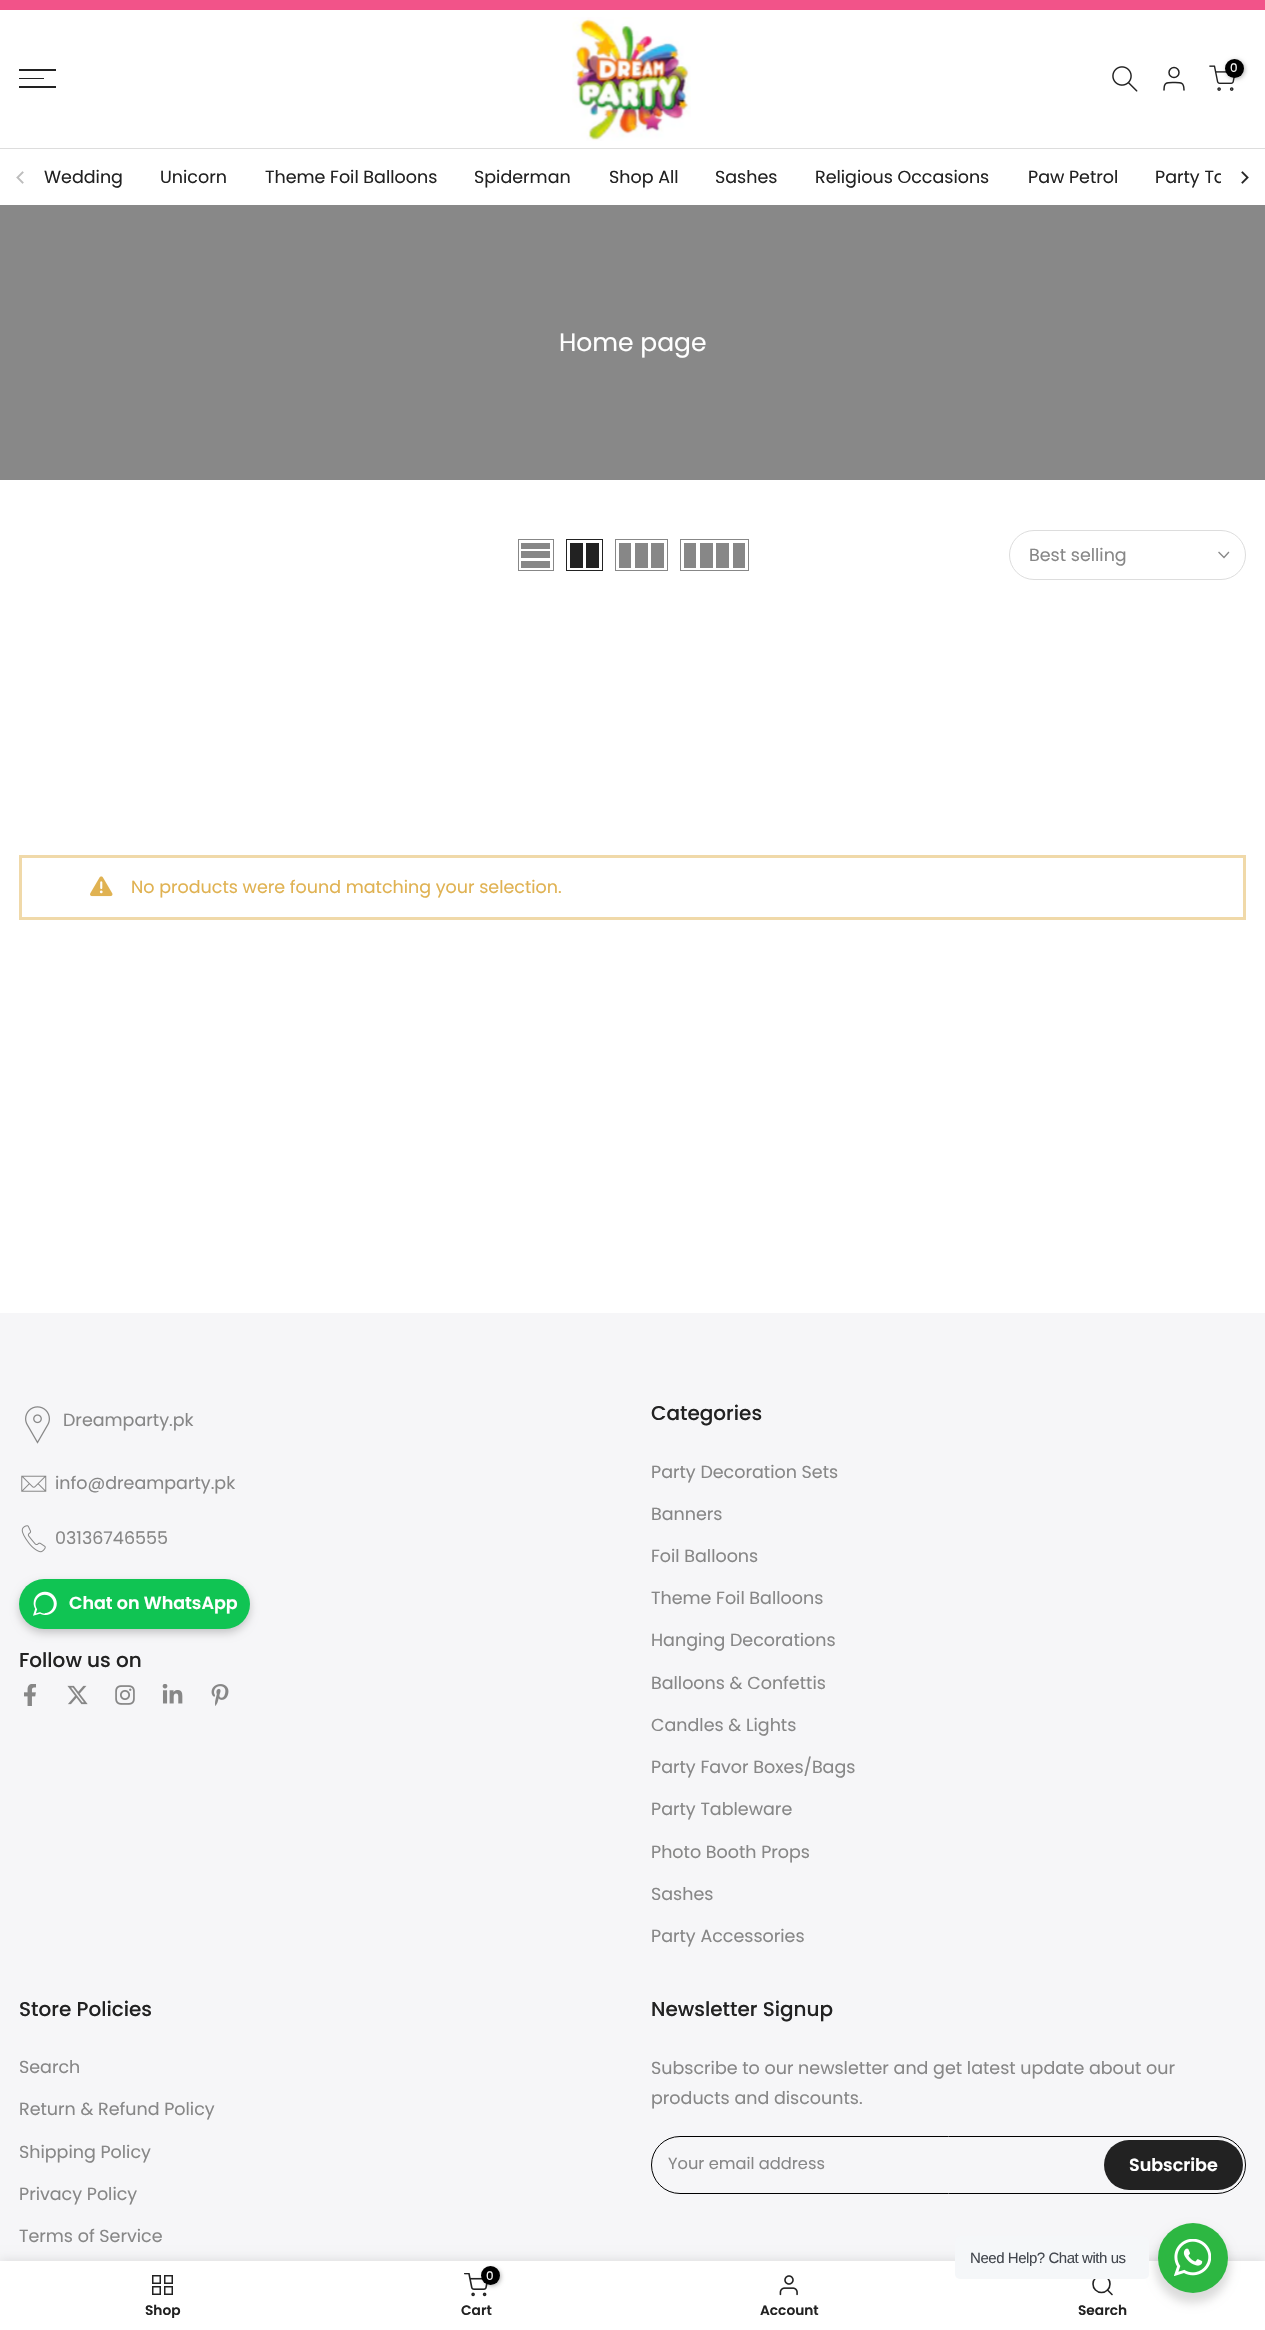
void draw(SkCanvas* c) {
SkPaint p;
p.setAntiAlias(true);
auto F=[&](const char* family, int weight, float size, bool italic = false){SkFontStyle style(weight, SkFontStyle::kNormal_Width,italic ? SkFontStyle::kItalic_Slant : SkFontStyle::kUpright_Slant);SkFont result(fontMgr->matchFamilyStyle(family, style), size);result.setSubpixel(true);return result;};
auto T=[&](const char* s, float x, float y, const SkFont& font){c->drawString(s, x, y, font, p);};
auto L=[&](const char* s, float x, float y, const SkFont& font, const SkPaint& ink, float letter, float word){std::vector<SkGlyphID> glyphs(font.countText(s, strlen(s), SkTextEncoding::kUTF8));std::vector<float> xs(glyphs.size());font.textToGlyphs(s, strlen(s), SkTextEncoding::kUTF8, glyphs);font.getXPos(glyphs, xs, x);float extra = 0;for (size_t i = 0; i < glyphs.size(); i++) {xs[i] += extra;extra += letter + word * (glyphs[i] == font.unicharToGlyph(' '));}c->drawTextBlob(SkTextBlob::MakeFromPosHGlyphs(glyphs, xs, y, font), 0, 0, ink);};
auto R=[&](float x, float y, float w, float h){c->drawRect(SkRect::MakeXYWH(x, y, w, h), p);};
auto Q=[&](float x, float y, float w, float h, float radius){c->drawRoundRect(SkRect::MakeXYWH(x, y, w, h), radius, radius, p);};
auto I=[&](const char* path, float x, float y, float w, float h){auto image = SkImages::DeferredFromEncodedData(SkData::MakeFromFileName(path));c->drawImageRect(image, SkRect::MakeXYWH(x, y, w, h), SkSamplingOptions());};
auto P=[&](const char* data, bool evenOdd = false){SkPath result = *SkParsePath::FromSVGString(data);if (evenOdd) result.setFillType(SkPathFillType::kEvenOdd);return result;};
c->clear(0xffffffff);
p.setColor(0xfff25389);
R(0,0,1265,10);
I("1.png",572,17,119,124);
I("2.png",1112,66,26,26);
p.setStroke(true);
p.setStrokeWidth(1.5);
p.setColor(0xff222222);
c->drawCircle(1174,72.5,5,p);
p.setStrokeCap(SkPaint::kRound_Cap);
p.setStrokeJoin(SkPaint::kRound_Join);
c->drawPath(P("M1184 90c0-8-3.5-7.5-10-7.5c-7 0-10-.5-10 7.5"),p);
I("3.png",1209,65,26,26);
p.setStroke(false);
p.setColor(0x4d000000);
p.setMaskFilter(SkMaskFilter::MakeBlur(kNormal_SkBlurStyle, 2));
c->drawRoundRect(SkRect::MakeXYWH(1226,60,19,19),9.5,9.5,p);
p.setMaskFilter(nullptr);
p.setColor(0xff000000);
c->drawCircle(1234.5,68.5,9.5,p);
auto f1 = F("Poppins",400,12);
p.setColor(0xffffffff);
T("0",1230,72,f1);
p.setColor(0xff222222);
R(19,69,37,2);
R(19,78,25,1);
R(19,86,37,2);
p.setColor(0xffdddddd);
R(0,148,1265,1);
I("4.png",16,171,8,13);
auto f2 = F("Poppins",400,17.5);
p.setColor(0xff222222);
T("Wedding",44,183,f2);
T("Unicorn",160,183,f2);
T("Theme Foil Balloons",265,183,f2);
T("Spiderman",474,183,f2);
T("Shop All",609,183,f2);
T("Sashes",715,183,f2);
T("Religious Occasions",815,183,f2);
T("Paw Petrol",1028,183,f2);
c->save();
c->clipRect(SkRect::MakeXYWH(44,149,1177,56));
T("Party Ta",1155,183,f2);
c->restore();
I("5.png",1241,171,8,13);
p.setColor(0xff888888);
R(0,205,1265,275);
auto f3 = F("Poppins",400,25);
p.setColor(0xffffffff);
T("Home page",559,351,f3);
p.setStroke(true);
p.setStrokeWidth(1);
p.setStrokeCap(SkPaint::kButt_Cap);
p.setStrokeJoin(SkPaint::kMiter_Join);
p.setColor(0xff878787);
c->drawRect(SkRect::MakeXYWH(518.5,539.5,35,31),p);
p.setStroke(false);
R(521,561,29,7);
R(521,551,29,7);
R(521,543,29,6);
p.setStroke(true);
p.setColor(0xff222222);
c->drawRect(SkRect::MakeXYWH(566.5,539.5,36,31),p);
p.setStroke(false);
R(586,543,13,25);
R(570,543,13,25);
p.setStroke(true);
p.setColor(0xff878787);
c->drawRect(SkRect::MakeXYWH(615.5,539.5,52,31),p);
p.setStroke(false);
R(651,543,13,25);
R(635,543,13,25);
R(619,543,12,25);
p.setStroke(true);
c->drawRect(SkRect::MakeXYWH(680.5,539.5,68,31),p);
p.setStroke(false);
R(733,543,12,25);
R(716,543,13,25);
R(700,543,13,25);
R(684,543,12,25);
p.setStroke(true);
p.setColor(0xffdddddd);
c->drawRoundRect(SkRect::MakeXYWH(1009.5,530.5,236,49),24.5,24.5,p);
p.setStroke(false);
p.setColor(0xff878787);
T("Best selling",1029,561,f2);
p.setStroke(true);
p.setStrokeWidth(1.3);
p.setStrokeCap(SkPaint::kSquare_Cap);
c->drawPath(P("M1228.5 552.5l-4.5 5l-5-5"),p);
p.setStrokeWidth(3);
p.setStrokeCap(SkPaint::kButt_Cap);
p.setColor(0xfff0d9a9);
c->drawRect(SkRect::MakeXYWH(20.5,856.5,1224,62),p);
I("6.png",90,876,23,21);
p.setStroke(false);
p.setColor(0xffe0b252);
T("No products were found matching your selection.",131,893,f2);
p.setColor(0xfff6f6f8);
R(0,1313,1265,948);
I("7.png",25,1406,25,38);
p.setColor(0xff878787);
T("Dreamparty.pk",63,1426,f2);
I("8.png",21,1475,26,17);
T("info@dreamparty.pk",55,1489,f2);
I("9.png",21,1525,25,28);
T("03136746555",55,1544,f2);
p.setColor(0x33000000);
p.setMaskFilter(SkMaskFilter::MakeBlur(kNormal_SkBlurStyle, 4));
c->drawRoundRect(SkRect::MakeXYWH(19,1583,231,50),25,25,p);
p.setMaskFilter(nullptr);
p.setColor(0xff10c453);
Q(19,1579,231,50,25);
I("10.png",33,1591,24,25);
auto f4 = F("Poppins",600,17.5);
p.setColor(0xffffffff);
T("Chat on WhatsApp",69,1609,f4);
auto f5 = F("Poppins",500,20);
p.setColor(0xff222222);
T("Follow us on",19,1667,f5);
I("11.png",24,1684,12,22);
I("12.png",67,1685,21,20);
I("13.png",115,1685,20,20);
I("14.png",162,1684,21,20);
I("15.png",211,1684,18,22);
T("Categories",651,1420,f5);
p.setColor(0xff878787);
T("Party Decoration Sets",651,1478,f2);
T("Banners",651,1520,f2);
T("Foil Balloons",651,1562,f2);
T("Theme Foil Balloons",651,1604,f2);
T("Hanging Decorations",651,1646,f2);
T("Balloons & Confettis",651,1689,f2);
T("Candles & Lights",651,1731,f2);
T("Party Favor Boxes/Bags",651,1773,f2);
T("Party Tableware",651,1815,f2);
T("Photo Booth Props",651,1858,f2);
T("Sashes",651,1900,f2);
T("Party Accessories",651,1942,f2);
p.setColor(0xff222222);
T("Store Policies",19,2016,f5);
p.setColor(0xff878787);
T("Search",19,2073,f2);
T("Return & Refund Policy",19,2115,f2);
T("Shipping Policy",19,2158,f2);
T("Privacy Policy",19,2200,f2);
T("Terms of Service",19,2242,f2);
p.setColor(0xff222222);
T("Newsletter Signup",651,2016,f5);
p.setColor(0xff878787);
T("Subscribe to our newsletter and get latest update about our",651,2074,f2);
T("products and discounts.",651,2104,f2);
p.setStroke(true);
p.setStrokeWidth(1);
p.setColor(0xff000000);
c->drawRoundRect(SkRect::MakeXYWH(651.5,2136.5,594,57),28.5,28.5,p);
auto f6 = F("Poppins",400,16.25);
p.setStroke(false);
p.setColor(0xff878787);
T("Your email address",668,2169,f6);
p.setColor(0xff222222);
Q(1104,2140,139,50,25);
p.setColor(0xffffffff);
T("Subscribe",1129,2171,f4);
p.setColor(0x1f000000);
p.setMaskFilter(SkMaskFilter::MakeBlur(kNormal_SkBlurStyle, 5.5));
c->drawRect(SkRect::MakeXYWH(0,2261,1265,69),p);
p.setMaskFilter(nullptr);
p.setColor(0xffffffff);
R(0,2261,1265,69);
p.setColor(0x24000000);
p.setMaskFilter(SkMaskFilter::MakeBlur(kNormal_SkBlurStyle, 5));
c->drawRoundRect(SkRect::MakeXYWH(1155,2228,75,75),37.5,37.5,p);
p.setMaskFilter(nullptr);
p.setStroke(true);
p.setStrokeWidth(1.6);
p.setColor(0xff222222);
c->drawCircle(1101.5,2284,8.5,p);
p.setStroke(false);
p.setColor(0xfff5f7f9);
Q(955,2236,194,43,5);
auto f7 = F("Liberation Sans",400,15);
p.setColor(0xff43474e);
L("Need Help? Chat with us",970,2263,f7,p,-.45,0);
p.setColor(0xff2db742);
c->drawCircle(1193,2258,35,p);
I("16.png",1174,2239,37,37);
p.setStroke(true);
p.setStrokeWidth(1.5);
p.setColor(0xff222222);
c->drawRect(SkRect::MakeXYWH(152.75,2275.75,7.5,7.5),p);
c->drawRect(SkRect::MakeXYWH(164.75,2275.75,7.5,7.5),p);
c->drawRect(SkRect::MakeXYWH(152.75,2286.75,7.5,7.5),p);
c->drawRect(SkRect::MakeXYWH(164.75,2286.75,7.5,7.5),p);
c->save();
c->clipRect(SkRect::MakeXYWH(19,2304,289,14));
auto f8 = F("Poppins",600,13.75);
p.setStroke(false);
T("Shop",145,2315,f8);
c->restore();
I("17.png",464,2273,24,24);
p.setColor(0x4d000000);
p.setMaskFilter(SkMaskFilter::MakeBlur(kNormal_SkBlurStyle, 2));
c->drawRoundRect(SkRect::MakeXYWH(483,2268,18,18),9,9,p);
p.setMaskFilter(nullptr);
p.setColor(0xff000000);
c->drawCircle(490.5,2275.5,9.5,p);
p.setColor(0xffffffff);
T("0",486,2280,f1);
p.setColor(0xff222222);
T("Cart",461,2315,f8);
I("18.png",779,2275,19,21);
T("Account",760,2315,f8);
p.setStroke(true);
p.setStrokeWidth(1.6);
p.setStrokeCap(SkPaint::kRound_Cap);
p.setStrokeJoin(SkPaint::kRound_Join);
c->drawPath(P("M1112 2294.5l-4.5-4.5"),p);
p.setStroke(false);
T("Search",1078,2315,f8);
}
